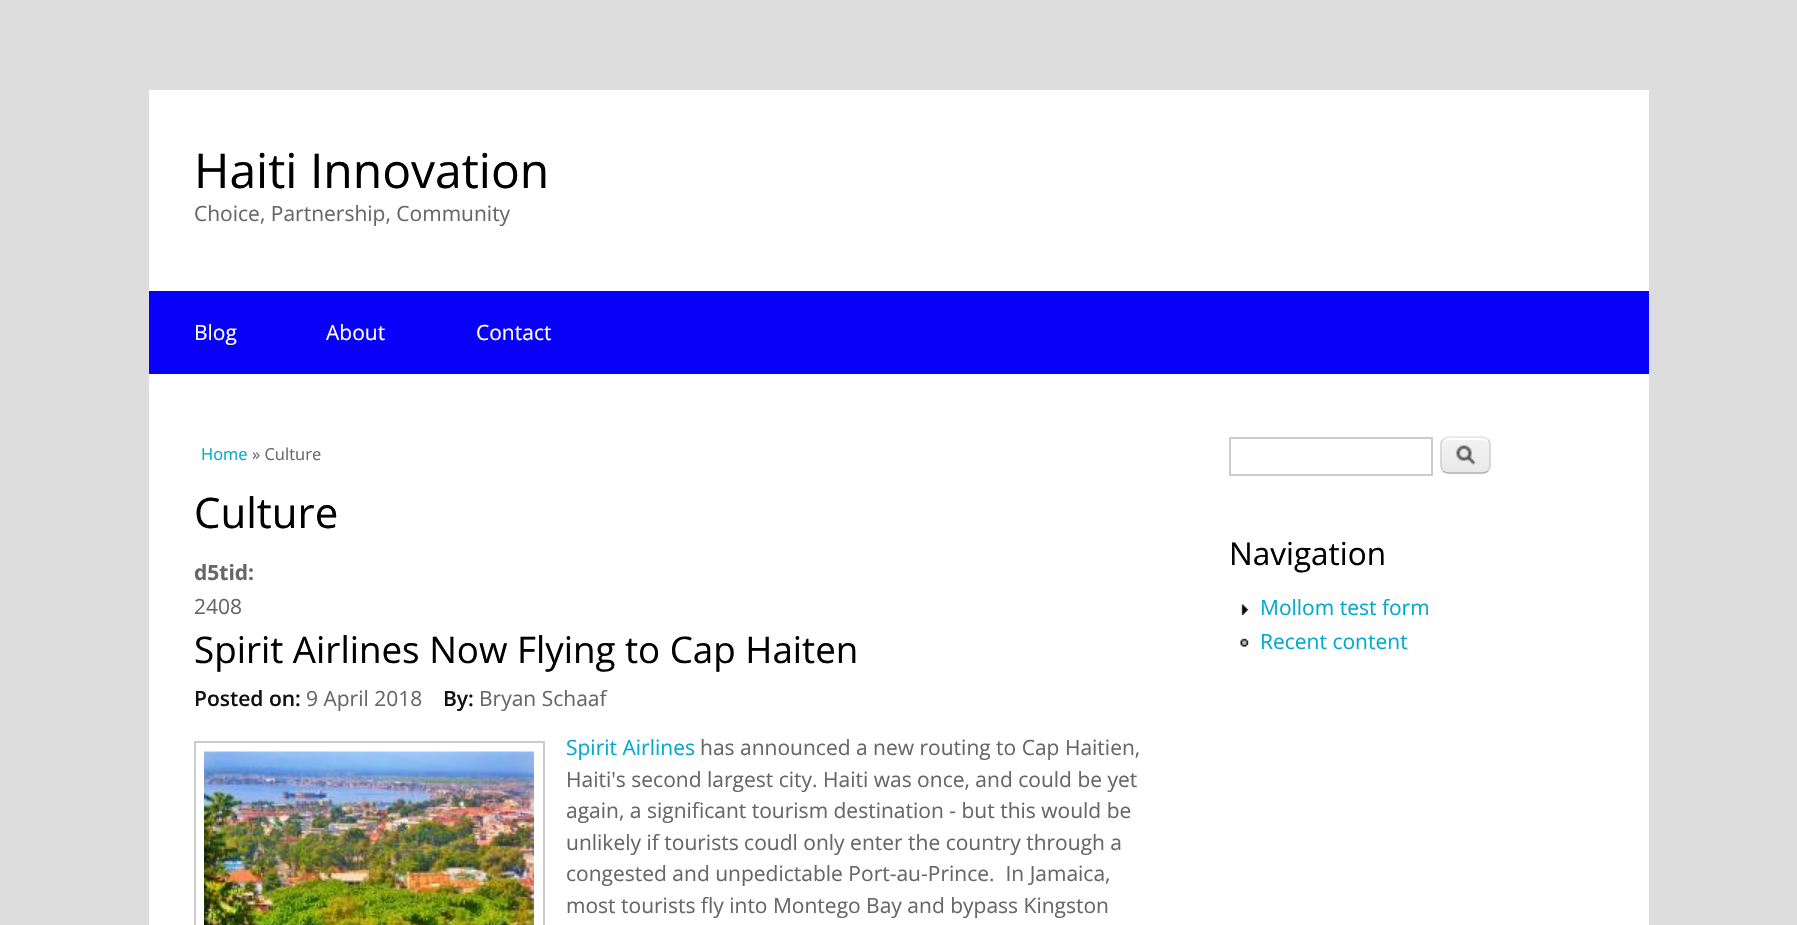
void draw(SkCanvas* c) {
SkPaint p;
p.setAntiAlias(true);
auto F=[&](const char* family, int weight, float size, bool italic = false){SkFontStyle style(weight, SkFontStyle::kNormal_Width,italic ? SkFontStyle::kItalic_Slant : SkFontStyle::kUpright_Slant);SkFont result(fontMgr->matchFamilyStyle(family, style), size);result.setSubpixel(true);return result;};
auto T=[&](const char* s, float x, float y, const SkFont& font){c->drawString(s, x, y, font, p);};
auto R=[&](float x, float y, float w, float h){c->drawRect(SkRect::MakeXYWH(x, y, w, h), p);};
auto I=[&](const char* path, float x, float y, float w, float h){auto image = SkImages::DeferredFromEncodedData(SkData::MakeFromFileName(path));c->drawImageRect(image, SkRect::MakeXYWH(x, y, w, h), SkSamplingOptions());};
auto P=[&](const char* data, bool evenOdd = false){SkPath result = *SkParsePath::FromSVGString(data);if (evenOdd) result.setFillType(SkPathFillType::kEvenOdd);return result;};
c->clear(0xffdddddd);
p.setColor(0xffffffff);
R(149,90,1500,835);
auto f1 = F("Open Sans",400,48);
p.setColor(0xff000000);
T("Haiti Innovation",194,188,f1);
auto f2 = F("Open Sans",400,21);
p.setColor(0xff676767);
T("Choice, Partnership, Community",194,221,f2);
p.setColor(0xff0800f9);
R(149,291,1500,83);
p.setColor(0xffffffff);
T("Blog",194,340,f2);
T("About",326,340,f2);
T("Contact",476,340,f2);
auto f3 = F("Open Sans",400,16.5);
p.setColor(0xff02aace);
T("Home",201,460,f3);
p.setColor(0xff676767);
T("» Culture",252,460,f3);
auto f4 = F("Open Sans",400,42);
p.setColor(0xff000000);
T("Culture",194,528,f4);
auto f5 = F("Open Sans",700,21);
p.setColor(0xff676767);
T("d5tid:",194,580,f5);
T("2408",194,614,f2);
auto f6 = F("Open Sans",400,36.75);
p.setColor(0xff000000);
T("Spirit Airlines Now Flying to Cap Haiten",194,663,f6);
auto f7 = F("Open Sans",600,21);
p.setColor(0xff111111);
T("Posted on:",194,706,f7);
p.setColor(0xff676767);
T("9 April 2018",306,706,f2);
p.setColor(0xff111111);
T("By:",443,706,f7);
p.setColor(0xff676767);
T("Bryan Schaaf",479,706,f2);
p.setStroke(true);
p.setStrokeWidth(2);
p.setColor(0xffcccccc);
c->drawRect(SkRect::MakeXYWH(195,742,349,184),p);
I("1.png",204,751,330,174);
p.setStroke(false);
p.setColor(0xff02aace);
T("Spirit Airlines",566,755,f2);
p.setColor(0xff676767);
T("has announced a new routing to Cap Haitien,",700,755,f2);
T("Haiti's second largest city. Haiti was once, and could be yet",566,787,f2);
T("again, a significant tourism destination - but this would be",566,818,f2);
T("unlikely if tourists coudl only enter the country through a",566,850,f2);
T("congested and unpedictable Port-au-Prince.  In Jamaica,",566,881,f2);
T("most tourists fly into Montego Bay and bypass Kingston",566,913,f2);
p.setStroke(true);
p.setColor(0xffcccccc);
c->drawRect(SkRect::MakeXYWH(1230,438,202,37),p);
I("2.png",1440,438,51,36);
p.setStroke(false);
p.setColor(0xffffffff);
c->drawPath(P("M1449 440h33c4 0 8 3 8 7c0-9-6-9-13-9h-22c-7 0-13 0-13 9c0-4 3-7 7-7z"),p);
p.setStroke(true);
p.setStrokeWidth(1.5);
p.setColor(0xffe4e4e4);
c->drawPath(P("M1443 439.5c1.5-1.5 4-2.5 6-2.5h33c2 0 4.5 1 6 2.5"),p);
p.setColor(0xffd2d2d2);
c->drawPath(P("M1488 439.5c1.5 1.5 2 4 2 6v19.5c0 2-.5 4.5-2 6"),p);
p.setColor(0xffb4b4b4);
c->drawPath(P("M1488 471c-1.5 1.5-4 2-6 2h-33c-2 0-4.5-.5-6-2"),p);
p.setColor(0xffd2d2d2);
c->drawPath(P("M1443 471c-1.5-1.5-2-4-2-6v-19.5c0-2 .5-4.5 2-6"),p);
auto f8 = F("Open Sans",400,31.5);
p.setStroke(false);
p.setColor(0xff000000);
T("Navigation",1229,565,f8);
I("3.png",1241,604,8,11);
p.setColor(0xff02aace);
T("Mollom test form",1260,615,f2);
I("4.png",1240,638,9,9);
T("Recent content",1260,649,f2);
}
